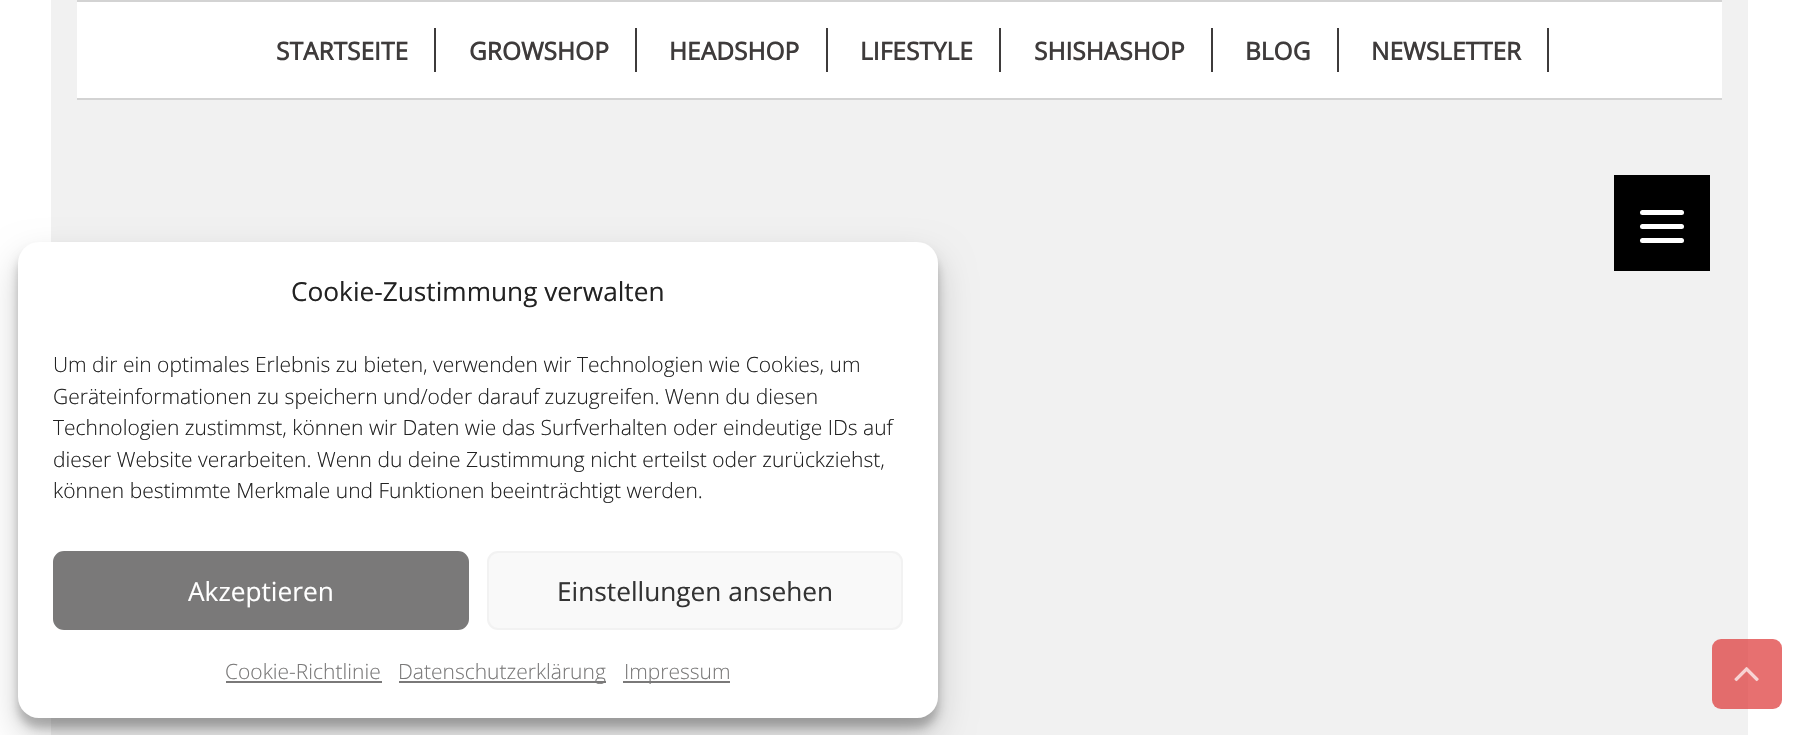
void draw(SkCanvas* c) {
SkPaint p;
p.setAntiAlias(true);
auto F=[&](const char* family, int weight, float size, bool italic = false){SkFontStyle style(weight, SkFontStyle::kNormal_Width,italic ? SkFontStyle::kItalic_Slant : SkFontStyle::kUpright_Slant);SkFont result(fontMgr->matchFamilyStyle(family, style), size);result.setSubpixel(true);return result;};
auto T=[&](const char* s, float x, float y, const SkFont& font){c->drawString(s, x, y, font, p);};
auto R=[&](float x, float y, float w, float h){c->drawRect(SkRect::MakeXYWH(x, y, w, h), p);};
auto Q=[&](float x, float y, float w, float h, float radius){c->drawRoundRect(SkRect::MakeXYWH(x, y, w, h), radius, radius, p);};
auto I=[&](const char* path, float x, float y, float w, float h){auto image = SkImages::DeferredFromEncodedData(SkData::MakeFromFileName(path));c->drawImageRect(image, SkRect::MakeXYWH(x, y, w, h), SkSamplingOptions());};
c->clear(0xffffffff);
p.setColor(0xfff1f1f1);
R(51,0,1697,735);
p.setColor(0xffffffff);
R(77,2,1645,96);
p.setColor(0xffd3d3d3);
R(77,0,1645,2);
R(77,98,1645,2);
p.setColor(0xff3e3b3b);
R(434,28,2,44);
auto f1 = F("Open Sans",700,24.5);
T("STARTSEITE",276,60,f1);
R(635,28,2,44);
T("GROWSHOP",469,60,f1);
R(826,28,2,44);
T("HEADSHOP",669,60,f1);
R(999,28,2,44);
T("LIFESTYLE",860,60,f1);
R(1211,28,2,44);
T("SHISHASHOP",1034,60,f1);
R(1337,28,2,44);
T("BLOG",1245,60,f1);
R(1547,28,2,44);
T("NEWSLETTER",1371,60,f1);
p.setColor(0xb3dd3333);
Q(1712,639,70,70,9);
I("1.png",1734,667,25,15);
p.setColor(0xff000000);
R(1614,175,96,96);
p.setColor(0xffffffff);
Q(1640,224,44,5,2.5);
Q(1640,210,44,5,2.5);
Q(1640,238,44,5,2.5);
p.setColor(0x3b000000);
p.setMaskFilter(SkMaskFilter::MakeBlur(kNormal_SkBlurStyle, 5));
c->drawRoundRect(SkRect::MakeXYWH(18,252,920,476),21,21,p);
p.setMaskFilter(nullptr);
p.setColor(0x30000000);
p.setMaskFilter(SkMaskFilter::MakeBlur(kNormal_SkBlurStyle, 17.5));
c->drawRoundRect(SkRect::MakeXYWH(18,259,920,476),21,21,p);
p.setMaskFilter(nullptr);
p.setColor(0xffffffff);
Q(18,242,920,476,21);
auto f2 = F("Open Sans",400,26.25);
p.setColor(0xff222222);
T("Cookie-Zustimmung verwalten",291,301,f2);
auto f3 = F("Open Sans",300,21);
T("Um dir ein optimales Erlebnis zu bieten, verwenden wir Technologien wie Cookies, um",53,372,f3);
T("Geräteinformationen zu speichern und/oder darauf zuzugreifen. Wenn du diesen",53,404,f3);
T("Technologien zustimmst, können wir Daten wie das Surfverhalten oder eindeutige IDs auf",53,435,f3);
T("dieser Website verarbeiten. Wenn du deine Zustimmung nicht erteilst oder zurückziehst,",53,467,f3);
T("können bestimmte Merkmale und Funktionen beeinträchtigt werden.",53,498,f3);
p.setColor(0xff7a7979);
c->drawRoundRect(SkRect::MakeXYWH(54,552,414,77),10,10,p);
p.setStroke(true);
p.setStrokeWidth(2);
c->drawRoundRect(SkRect::MakeXYWH(54,552,414,77),10,10,p);
p.setStroke(false);
p.setColor(0xffffffff);
T("Akzeptieren",188,601,f2);
p.setColor(0xfff9f9f9);
c->drawRoundRect(SkRect::MakeXYWH(488,552,414,77),10,10,p);
p.setStroke(true);
p.setColor(0xfff2f2f2);
c->drawRoundRect(SkRect::MakeXYWH(488,552,414,77),10,10,p);
p.setStroke(false);
p.setColor(0xff333333);
T("Einstellungen ansehen",557,601,f2);
p.setColor(0xff7a7979);
T("Cookie-Richtlinie",225,679,f3);
R(226,681,156,2);
R(399,681,207,2);
T("Datenschutzerklärung",398,679,f3);
R(623,681,107,2);
T("Impressum",624,679,f3);
}
